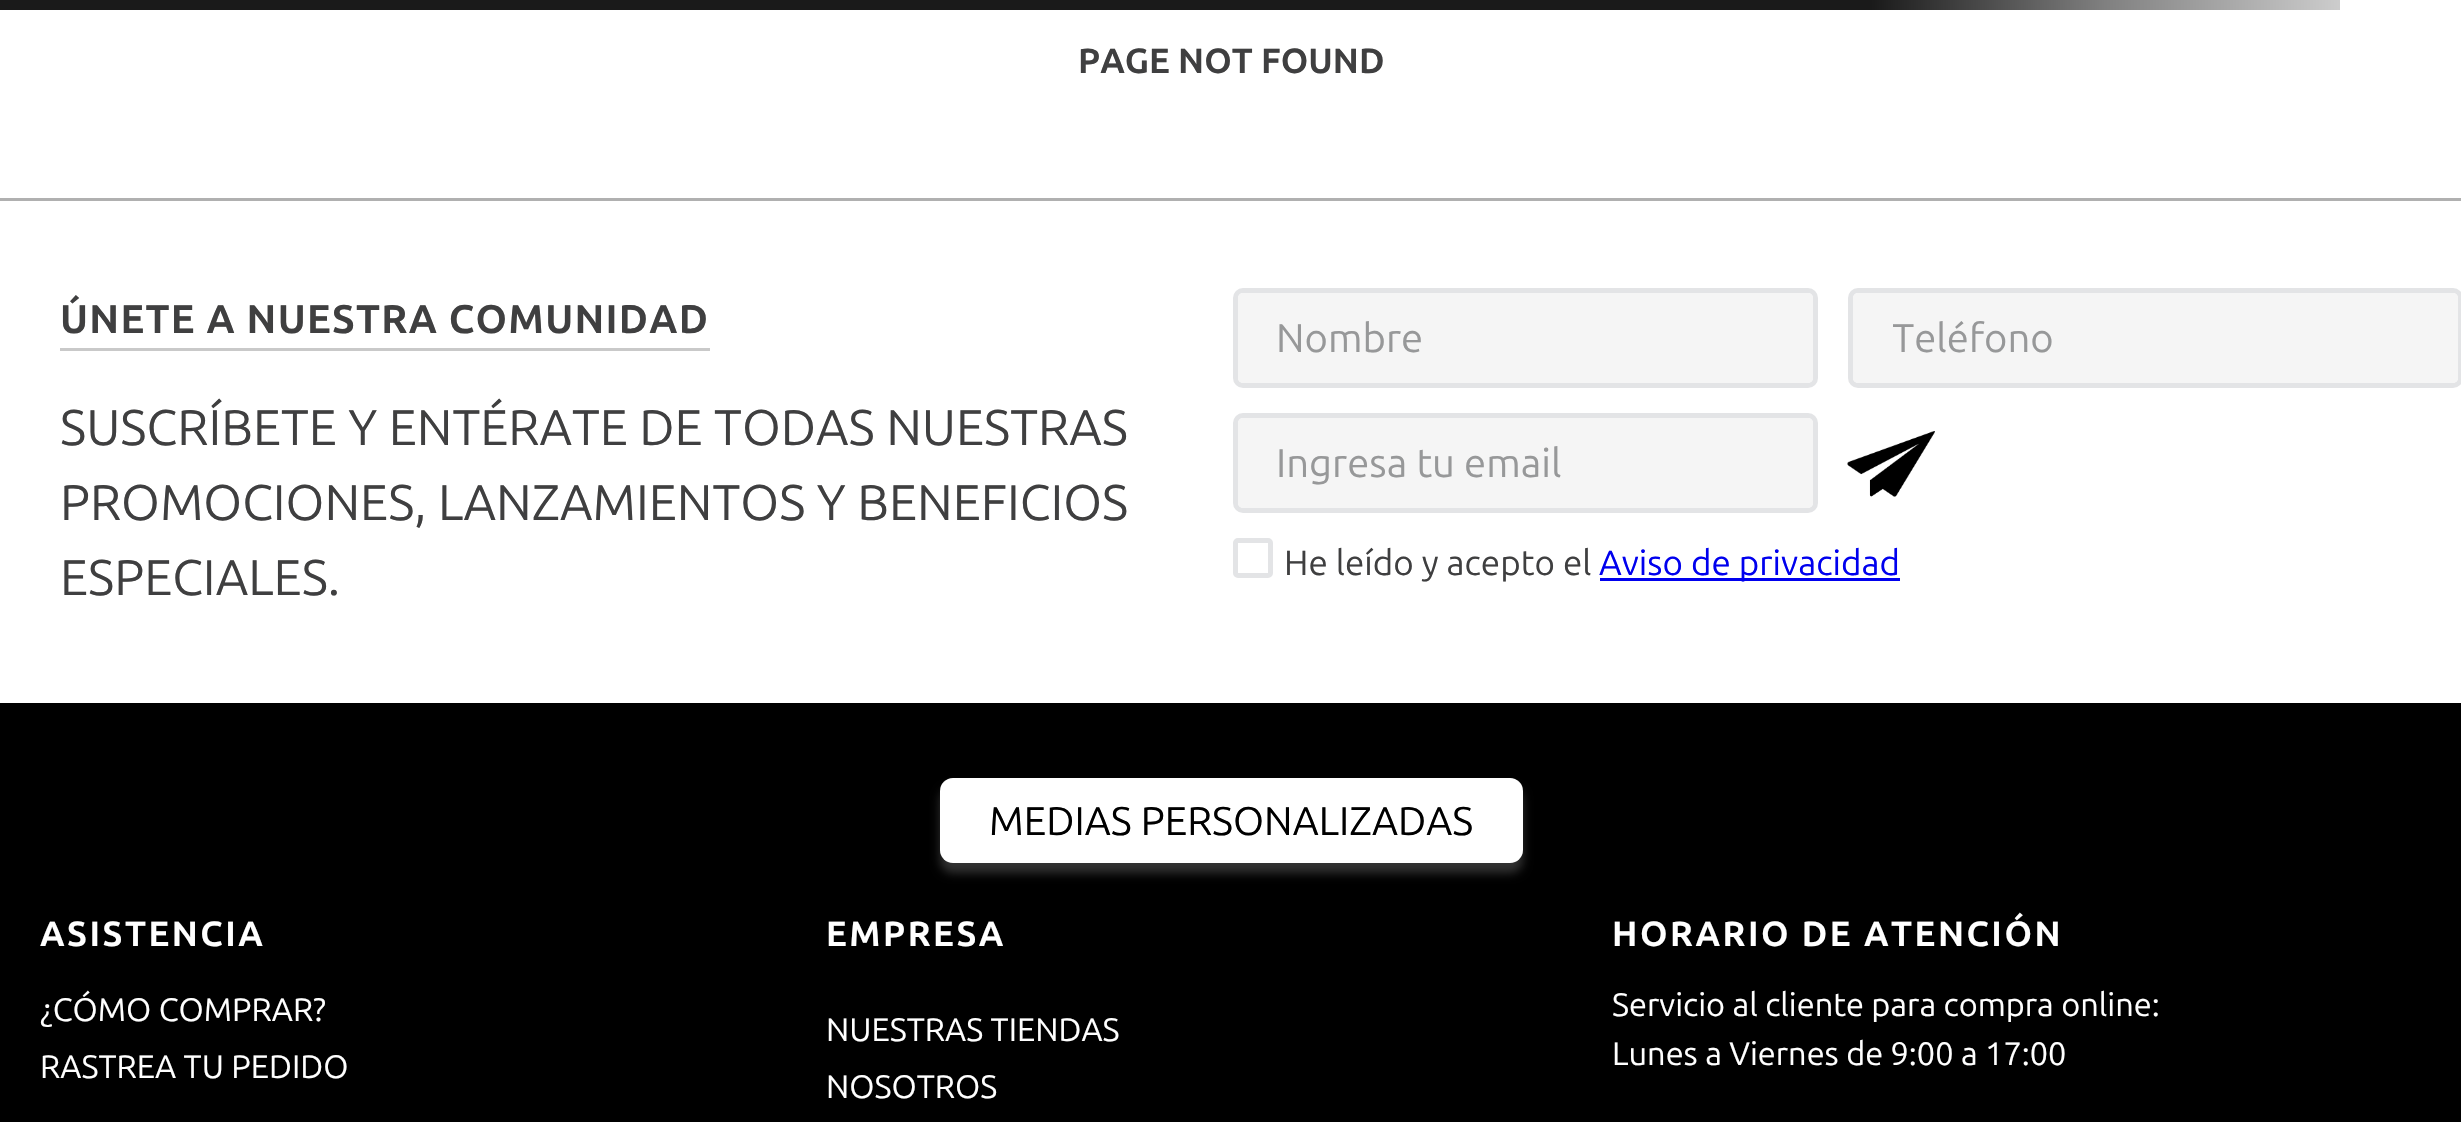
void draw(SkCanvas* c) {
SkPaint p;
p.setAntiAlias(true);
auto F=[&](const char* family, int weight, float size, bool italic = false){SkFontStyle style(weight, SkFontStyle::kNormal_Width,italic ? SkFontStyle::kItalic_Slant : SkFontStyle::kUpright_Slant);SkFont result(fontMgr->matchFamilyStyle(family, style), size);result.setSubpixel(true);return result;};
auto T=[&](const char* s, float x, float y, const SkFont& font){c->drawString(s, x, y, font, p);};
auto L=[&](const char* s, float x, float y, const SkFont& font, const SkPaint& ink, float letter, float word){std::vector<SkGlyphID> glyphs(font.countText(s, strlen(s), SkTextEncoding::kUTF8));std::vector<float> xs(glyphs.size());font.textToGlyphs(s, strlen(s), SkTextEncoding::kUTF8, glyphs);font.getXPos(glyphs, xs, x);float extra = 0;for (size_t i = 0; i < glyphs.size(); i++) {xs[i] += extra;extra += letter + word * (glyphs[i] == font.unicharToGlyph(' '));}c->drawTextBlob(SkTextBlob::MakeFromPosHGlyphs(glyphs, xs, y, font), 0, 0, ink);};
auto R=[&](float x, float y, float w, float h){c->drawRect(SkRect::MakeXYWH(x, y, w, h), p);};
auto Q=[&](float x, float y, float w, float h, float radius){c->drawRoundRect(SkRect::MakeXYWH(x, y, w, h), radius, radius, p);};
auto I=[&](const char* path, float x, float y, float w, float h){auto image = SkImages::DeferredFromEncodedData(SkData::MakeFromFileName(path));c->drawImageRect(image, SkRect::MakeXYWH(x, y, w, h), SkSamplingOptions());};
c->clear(0xffffffff);
{
const SkColor colors[] = {0xff1a1a1a,0xff808080,0xffcccccc};
const float stops[] = {.8,.9,1};
const SkPoint ends[] = {{0,5}, {2339,5}};
p.setShader(SkGradientShader::MakeLinear(ends, colors, stops, 3, SkTileMode::kClamp));
p.setAlpha(255);
}
R(0,0,2340,10);
auto f1 = F("Ubuntu",700,35);
p.setShader(nullptr);
p.setColor(0xff3f3f40);
T("PAGE NOT FOUND",1078,73,f1);
p.setColor(0xffb0b0b0);
R(0,198,2461,3);
p.setColor(0xffc9c9c9);
R(60,348,650,3);
auto f2 = F("Ubuntu",700,40);
p.setColor(0xff3f3f40);
L("ÚNETE A NUESTRA COMUNIDAD",60,333,f2,p,1.25,0);
auto f3 = F("Ubuntu",400,50);
T("SUSCRÍBETE Y ENTÉRATE DE TODAS NUESTRAS",60,445,f3);
T("PROMOCIONES, LANZAMIENTOS Y BENEFICIOS",60,520,f3);
T("ESPECIALES.",60,595,f3);
p.setStroke(true);
p.setStrokeWidth(5);
p.setColor(0xffe3e4e6);
c->drawRoundRect(SkRect::MakeXYWH(1235.5,290.5,580,95),7.5,7.5,p);
p.setStroke(false);
p.setColor(0xfff5f5f5);
Q(1238,293,575,90,5);
auto f4 = F("Ubuntu",400,40);
p.setColor(0xff979899);
T("Nombre",1276,352,f4);
p.setStroke(true);
p.setColor(0xffe3e4e6);
c->drawRoundRect(SkRect::MakeXYWH(1850.5,290.5,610,95),7.5,7.5,p);
p.setStroke(false);
p.setColor(0xfff5f5f5);
Q(1853,293,605,90,5);
c->save();
c->clipRect(SkRect::MakeXYWH(1893,315,525,45));
p.setColor(0xff979899);
T("Teléfono",1892,352,f4);
c->restore();
p.setStroke(true);
p.setColor(0xffe3e4e6);
c->drawRoundRect(SkRect::MakeXYWH(1235.5,415.5,580,95),7.5,7.5,p);
p.setStroke(false);
p.setColor(0xfff5f5f5);
Q(1238,418,575,90,5);
p.setColor(0xff979899);
T("Ingresa tu email",1276,477,f4);
I("1.png",1847,431,88,66);
p.setStroke(true);
p.setColor(0xffe3e4e6);
c->drawRoundRect(SkRect::MakeXYWH(1235.5,540.5,35,35),2.5,2.5,p);
auto f5 = F("Ubuntu",400,35);
p.setStroke(false);
p.setColor(0xff3f3f40);
T("He leído y acepto el",1284,575,f5);
p.setColor(0xff0000ee);
R(1600,578,300,3);
T("Aviso de privacidad",1599,575,f5);
p.setColor(0xff000000);
R(0,703,2461,419);
p.setColor(0x40c5c4c4);
p.setMaskFilter(SkMaskFilter::MakeBlur(kNormal_SkBlurStyle, 5));
c->drawRoundRect(SkRect::MakeXYWH(940,788,583,85),13,13,p);
p.setMaskFilter(nullptr);
p.setColor(0xffffffff);
Q(940,778,583,85,13);
p.setColor(0xff000000);
T("MEDIAS PERSONALIZADAS",989,835,f4);
p.setColor(0xffffffff);
L("ASISTENCIA",40,946,f1,p,2.5,0);
auto f6 = F("Ubuntu",400,32.5);
T("¿CÓMO COMPRAR?",40,1021,f6);
T("RASTREA TU PEDIDO",40,1078,f6);
L("EMPRESA",826,946,f1,p,2.5,0);
T("NUESTRAS TIENDAS",826,1041,f6);
T("NOSOTROS",826,1098,f6);
L("HORARIO DE ATENCIÓN",1612,946,f1,p,2.5,0);
T("Servicio al cliente para compra online:",1612,1016,f6);
T("Lunes a Viernes de 9:00 a 17:00",1612,1065,f6);
}
